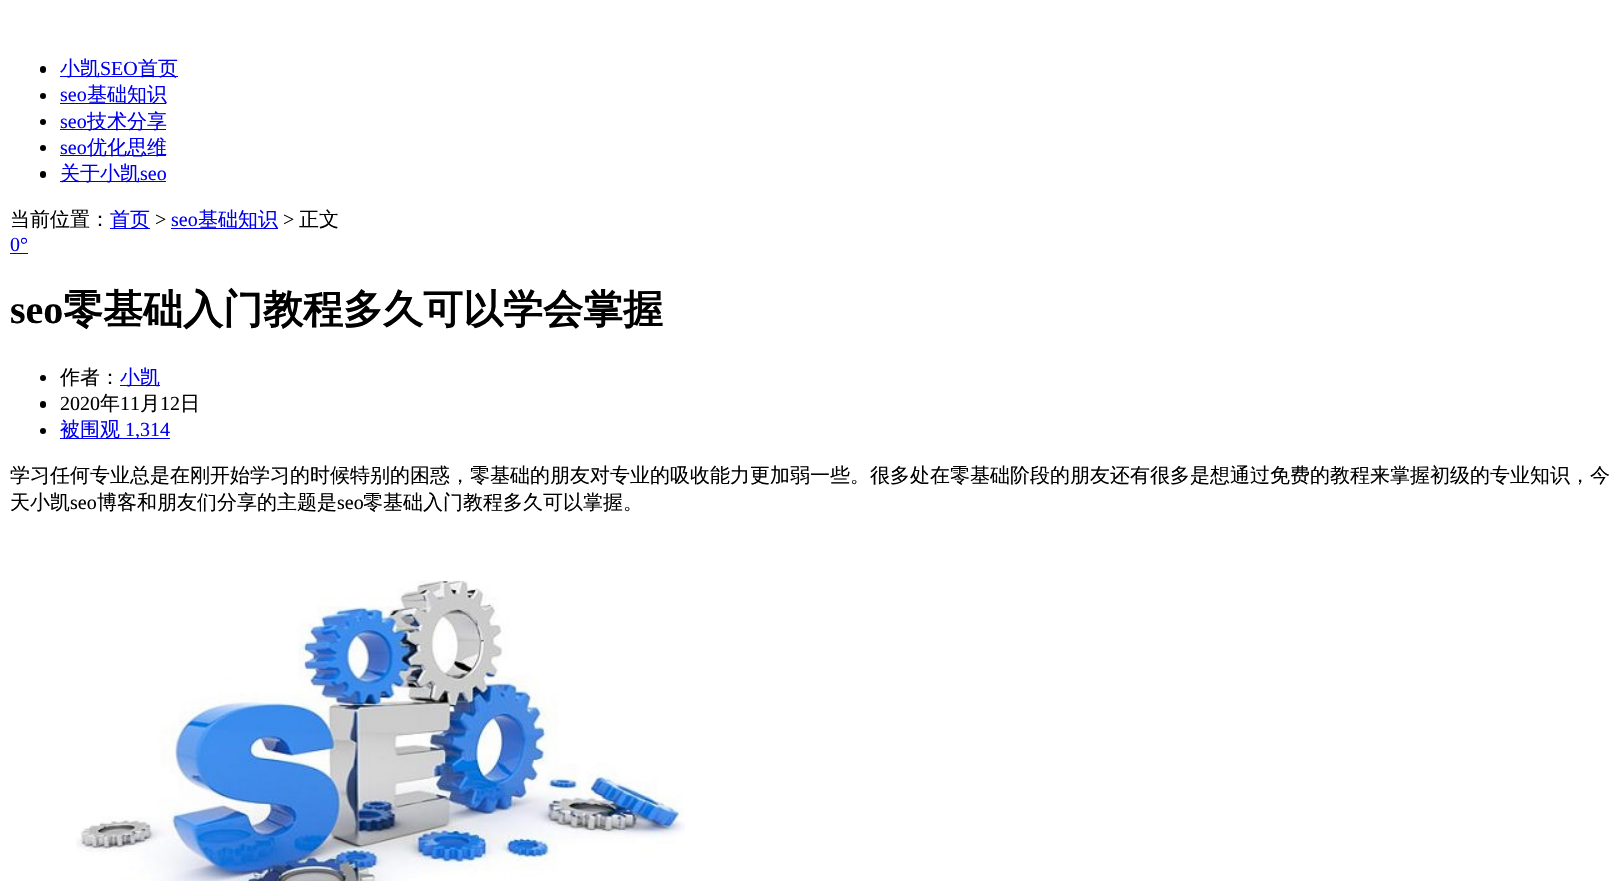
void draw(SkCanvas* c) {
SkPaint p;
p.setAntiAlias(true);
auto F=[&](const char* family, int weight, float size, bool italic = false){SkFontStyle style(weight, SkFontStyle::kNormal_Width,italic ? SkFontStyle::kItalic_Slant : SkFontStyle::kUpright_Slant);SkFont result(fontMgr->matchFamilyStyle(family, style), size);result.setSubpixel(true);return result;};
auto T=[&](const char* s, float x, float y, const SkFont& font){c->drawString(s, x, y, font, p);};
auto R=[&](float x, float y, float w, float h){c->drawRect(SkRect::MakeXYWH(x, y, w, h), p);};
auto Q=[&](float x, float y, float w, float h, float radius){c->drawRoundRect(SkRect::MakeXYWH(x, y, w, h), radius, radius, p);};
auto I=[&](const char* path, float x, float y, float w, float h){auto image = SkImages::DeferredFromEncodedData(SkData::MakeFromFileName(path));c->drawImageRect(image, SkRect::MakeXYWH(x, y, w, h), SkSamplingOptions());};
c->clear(0xffffffff);
p.setColor(0xff000000);
Q(40,66,6,7,3);
p.setColor(0xff0000ee);
R(60,76,118,1);
auto f1 = F("WenQuanYi Zen Hei",500,20);
T("小凯",60,75,f1);
auto f2 = F("Liberation Serif",400,20);
T("SEO",100,75,f2);
T("首页",138,75,f1);
p.setColor(0xff000000);
c->drawCircle(43,96,3,p);
p.setColor(0xff0000ee);
T("seo",60,101,f2);
R(60,103,106,1);
T("基础知识",87,101,f1);
p.setColor(0xff000000);
c->drawCircle(43,122,3,p);
p.setColor(0xff0000ee);
T("seo",60,128,f2);
R(60,129,106,1);
T("技术分享",87,128,f1);
p.setColor(0xff000000);
c->drawCircle(43,148,3,p);
p.setColor(0xff0000ee);
T("seo",60,154,f2);
R(60,155,106,1);
T("优化思维",87,154,f1);
p.setColor(0xff000000);
Q(40,171,6,7,3);
p.setColor(0xff0000ee);
R(60,181,106,1);
T("关于小凯",60,180,f1);
T("seo",140,180,f2);
p.setColor(0xff000000);
T("当前位置：",10,226,f1);
p.setColor(0xff0000ee);
R(110,228,40,1);
T("首页",110,226,f1);
p.setColor(0xff000000);
T(">",155,226,f2);
p.setColor(0xff0000ee);
T("seo",171,226,f2);
R(171,228,107,1);
T("基础知识",198,226,f1);
p.setColor(0xff000000);
T(">",283,226,f2);
T("正文",299,226,f1);
p.setColor(0xff0000ee);
T("0°",10,251,f2);
R(10,253,18,1);
auto f3 = F("Liberation Serif",700,40);
p.setColor(0xff000000);
T("seo",10,323,f3);
auto f4 = F("WenQuanYi Zen Hei",700,40);
T("零基础入门教程多久可以学会掌握",63,323,f4);
c->drawCircle(43,378,3,p);
T("作者：",60,384,f1);
p.setColor(0xff0000ee);
R(120,385,40,1);
T("小凯",120,384,f1);
p.setColor(0xff000000);
Q(40,401,6,7,3);
T("2020",60,410,f2);
T("年",100,410,f1);
T("11",120,410,f2);
T("月",140,410,f1);
T("12",160,410,f2);
T("日",180,410,f1);
c->drawCircle(43,431,3,p);
p.setColor(0xff0000ee);
R(60,438,110,1);
T("被围观",60,436,f1);
T("1,314",125,436,f2);
p.setColor(0xff000000);
T("学习任何专业总是在刚开始学习的时候特别的困惑，零基础的朋友对专业的吸收能力更加弱一些。很多处在零基础阶段的朋友还有很多是想通过免费的教程来掌握初级的专业知识，今",10,482,f1);
T("天小凯",10,509,f1);
T("seo",70,509,f2);
T("博客和朋友们分享的主题是",97,509,f1);
T("seo",337,509,f2);
T("零基础入门教程多久可以掌握。",363,509,f1);
I("1.png",76,580,609,301);
}
